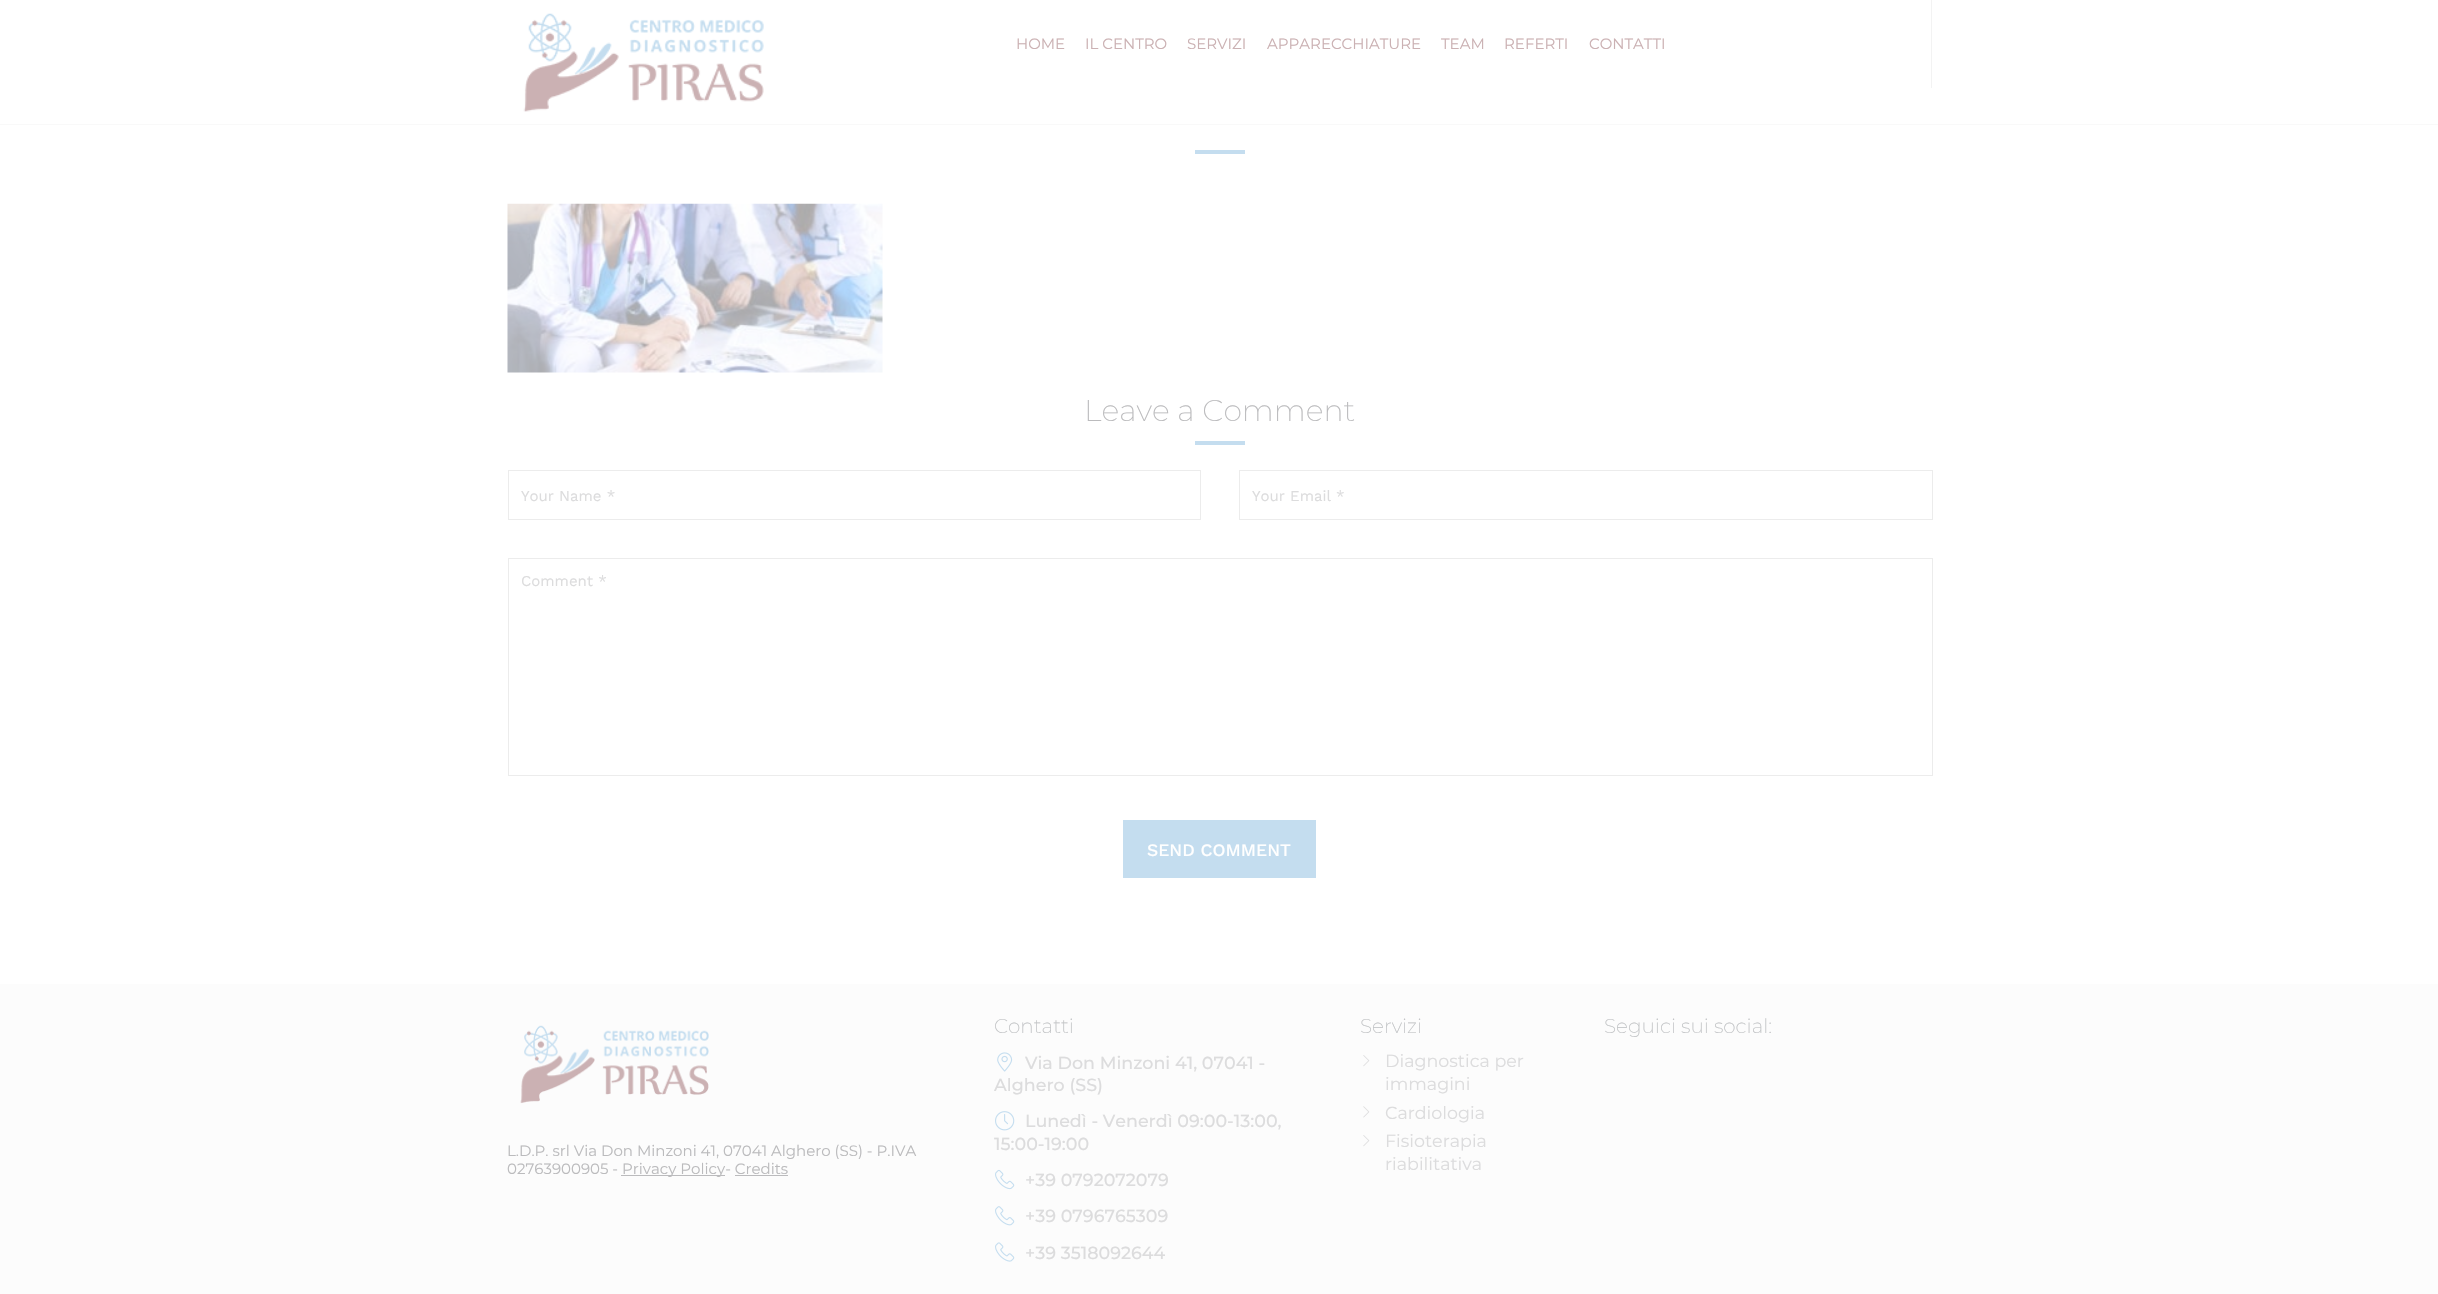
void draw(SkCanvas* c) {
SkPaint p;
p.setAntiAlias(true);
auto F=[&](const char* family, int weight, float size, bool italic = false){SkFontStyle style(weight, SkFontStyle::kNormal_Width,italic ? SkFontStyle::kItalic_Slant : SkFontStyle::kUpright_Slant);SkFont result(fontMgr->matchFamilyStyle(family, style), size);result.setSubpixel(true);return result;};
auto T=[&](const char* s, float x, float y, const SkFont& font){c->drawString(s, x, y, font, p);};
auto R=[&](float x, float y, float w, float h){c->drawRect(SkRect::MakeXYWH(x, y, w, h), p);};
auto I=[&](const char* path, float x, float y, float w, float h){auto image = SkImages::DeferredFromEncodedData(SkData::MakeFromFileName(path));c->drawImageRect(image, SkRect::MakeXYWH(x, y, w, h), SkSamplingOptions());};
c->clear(0xffffffff);
p.setColor(0xfff9f9f9);
R(0,124,2438,1);
I("1.png",523,13,241,99);
p.setColor(0xfff3f3f3);
R(1931,0,1,88);
auto f1 = F("Montserrat",400,15);
p.setColor(0xffcbb1b3);
T("HOME",1016,49,f1);
T("IL CENTRO",1085,49,f1);
T("SERVIZI",1187,49,f1);
T("APPARECCHIATURE",1267,49,f1);
T("TEAM",1441,49,f1);
T("REFERTI",1504,49,f1);
T("CONTATTI",1589,49,f1);
p.setColor(0xffc4ddef);
R(1195,150,50,4);
I("2.png",507,203,376,170);
auto f2 = F("Montserrat",200,30);
p.setColor(0xffbbbbbd);
T("Leave a Comment",1084,421,f2);
p.setColor(0xffc4ddef);
R(1195,441,50,4);
p.setStroke(true);
p.setStrokeWidth(1);
p.setColor(0xffececec);
c->drawRect(SkRect::MakeXYWH(508.5,470.5,692,49),p);
auto f3 = F("Work Sans",400,15);
p.setStroke(false);
p.setColor(0xffdcdcdd);
T("Your Name *",521,501,f3);
p.setStroke(true);
p.setColor(0xffececec);
c->drawRect(SkRect::MakeXYWH(1239.5,470.5,693,49),p);
p.setStroke(false);
p.setColor(0xffdcdcdd);
T("Your Email *",1252,501,f3);
p.setStroke(true);
p.setColor(0xffececec);
c->drawRect(SkRect::MakeXYWH(508.5,558.5,1424,217),p);
p.setStroke(false);
p.setColor(0xffdcdcdd);
T("Comment *",521,586,f3);
p.setColor(0xffc4ddef);
R(1123,820,193,58);
auto f4 = F("Work Sans",500,17.5);
p.setColor(0xffffffff);
T("SEND COMMENT",1147,856,f4);
p.setColor(0xfffcfcfc);
R(0,984,2438,310);
auto f5 = F("Montserrat",200,20);
p.setColor(0xffc0c2c4);
T("Contatti",994,1033,f5);
I("3.png",997,1052,16,20);
auto f6 = F("Montserrat",500,17.5);
p.setColor(0xffdcdcdd);
T("Via Don Minzoni 41, 07041 -",1025,1069,f6);
T("Alghero (SS)",994,1091,f6);
I("4.png",995,1111,20,20);
T("Lunedì - Venerdì 09:00-13:00,",1025,1127,f6);
T("15:00-19:00",994,1150,f6);
I("5.png",995,1169,20,21);
T("+39 0792072079",1025,1186,f6);
I("6.png",995,1206,20,20);
T("+39 0796765309",1025,1222,f6);
I("7.png",995,1242,20,20);
T("+39 3518092644",1025,1259,f6);
p.setColor(0xffc0c2c4);
T("Servizi",1360,1033,f5);
I("8.png",1363,1055,7,12);
auto f7 = F("Montserrat",400,17.5);
p.setColor(0xffdcdcdd);
T("Diagnostica per",1385,1067,f7);
T("immagini",1385,1090,f7);
I("9.png",1363,1106,7,12);
T("Cardiologia",1385,1119,f7);
I("8.png",1363,1135,7,12);
T("Fisioterapia",1385,1147,f7);
T("riabilitativa",1385,1170,f7);
p.setColor(0xffc0c2c4);
T("Seguici sui social:",1604,1033,f5);
I("10.png",520,1025,189,79);
p.setColor(0xffbbbbbd);
T("L.D.P. srl Via Don Minzoni 41, 07041 Alghero (SS) - P.IVA",507,1156,f1);
T("02763900905 -",507,1174,f1);
R(621,1175,104,1);
T("Privacy Policy- Credits",622,1174,f1);
R(735,1175,53,1);
}
